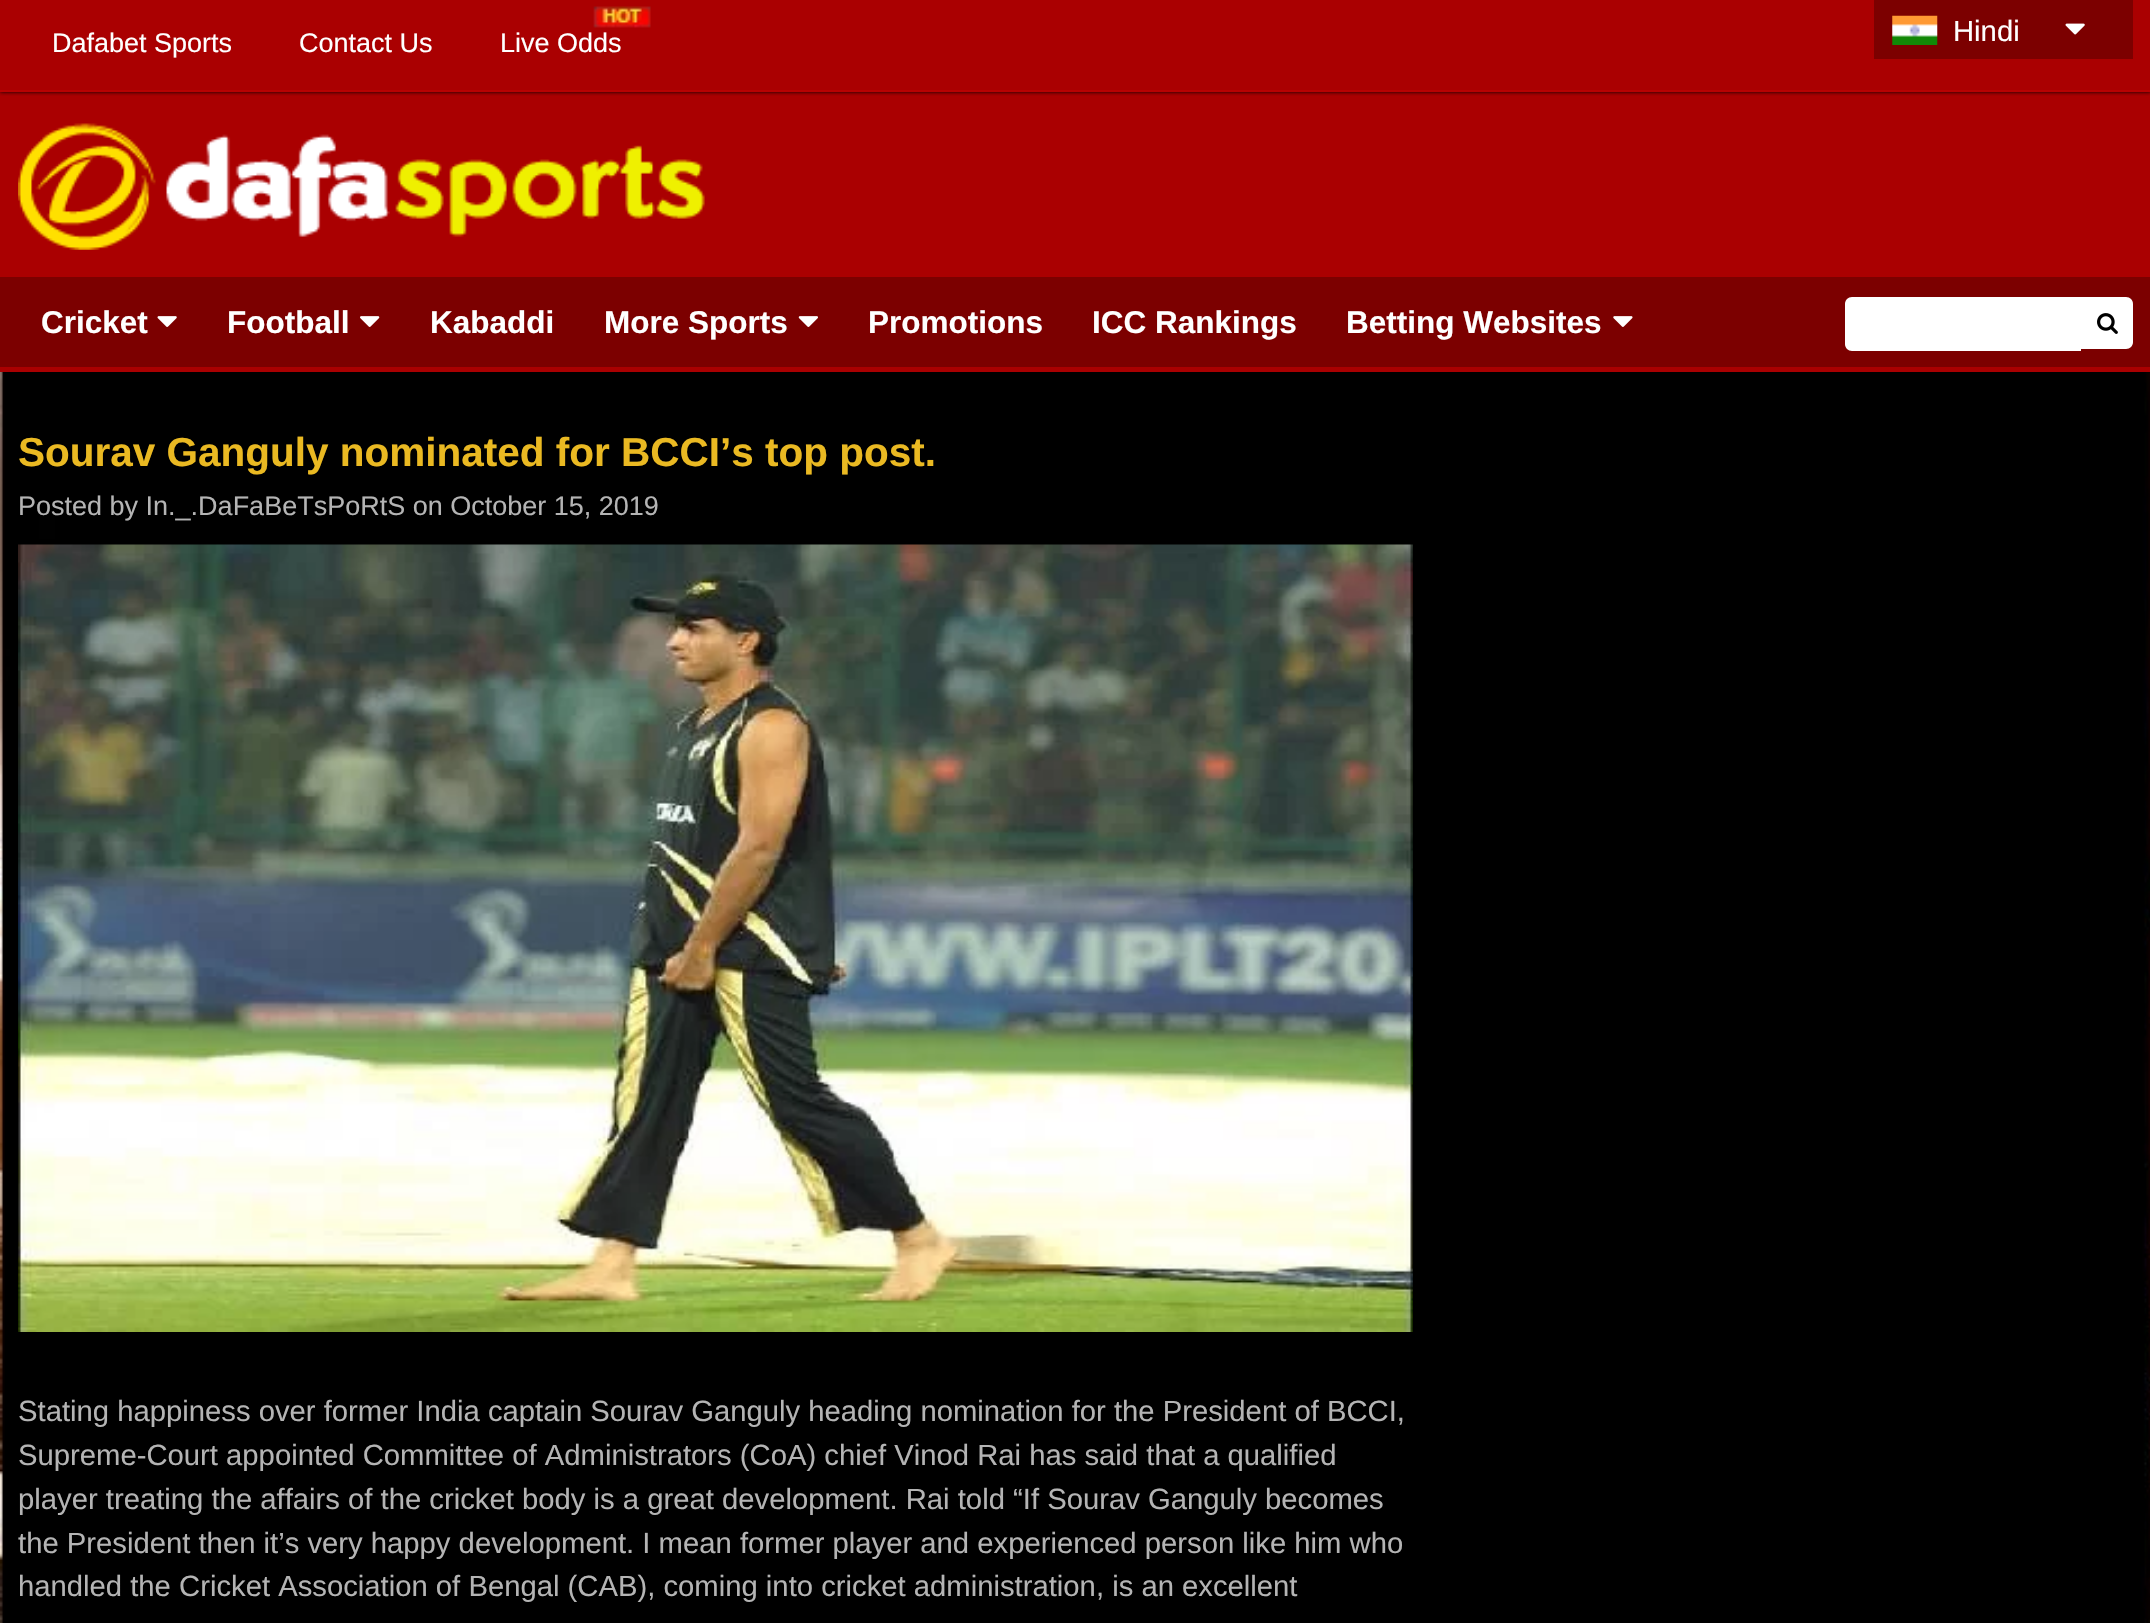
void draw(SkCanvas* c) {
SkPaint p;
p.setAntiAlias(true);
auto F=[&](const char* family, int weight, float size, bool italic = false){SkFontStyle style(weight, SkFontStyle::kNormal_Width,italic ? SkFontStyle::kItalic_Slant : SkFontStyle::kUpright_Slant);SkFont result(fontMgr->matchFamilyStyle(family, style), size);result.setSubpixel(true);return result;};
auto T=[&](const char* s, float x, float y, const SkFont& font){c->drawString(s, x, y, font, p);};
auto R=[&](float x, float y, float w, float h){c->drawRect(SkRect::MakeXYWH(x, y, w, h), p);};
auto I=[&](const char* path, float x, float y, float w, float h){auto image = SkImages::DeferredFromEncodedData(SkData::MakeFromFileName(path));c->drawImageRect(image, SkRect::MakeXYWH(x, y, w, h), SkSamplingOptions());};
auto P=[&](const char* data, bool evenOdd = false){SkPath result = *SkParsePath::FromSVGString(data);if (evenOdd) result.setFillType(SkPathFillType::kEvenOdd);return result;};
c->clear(0xffffffff);
I("1.png",0,372,2150,1251);
p.setColor(0xffaa0001);
R(0,0,2150,277);
R(0,367,2150,5);
c->save();
c->clipRect(SkRect::MakeXYWH(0,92,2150,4));
p.setColor(0xff000000);
p.setMaskFilter(SkMaskFilter::MakeBlur(kNormal_SkBlurStyle, 2));
c->drawRect(SkRect::MakeXYWH(0,0,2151,92),p);
p.setMaskFilter(nullptr);
c->restore();
p.setColor(0xffb80102);
R(0,90,2150,2);
auto f1 = F("Liberation Sans",400,27);
p.setColor(0xffffffff);
T("Dafabet Sports",52,52,f1);
T("Contact Us",299,52,f1);
I("2.png",593,6,58,22);
T("Live Odds",500,52,f1);
p.setColor(0xff7c0000);
R(1874,0,259,59);
I("3.png",1892,15,46,30);
auto f2 = F("Liberation Sans",400,29.25);
p.setColor(0xffffffff);
T("Hindi",1953,41,f2);
I("4.png",2065,23,20,12);
I("5.png",18,123,687,127);
p.setColor(0xff7c0000);
R(0,277,2150,90);
auto f3 = F("Liberation Sans",700,31.5);
p.setColor(0xffffffff);
T("Cricket",41,333,f3);
I("6.png",157,316,20,11);
T("Football",227,333,f3);
I("7.png",360,316,20,11);
T("Kabaddi",430,333,f3);
T("More Sports",604,333,f3);
I("8.png",798,316,20,11);
T("Promotions",868,333,f3);
T("ICC Rankings",1092,333,f3);
T("Betting Websites",1346,333,f3);
I("9.png",1613,316,20,11);
c->drawPath(P("M1852 297h229v54h-229c-4 0-7-3-7-7v-40c0-4 3-7 7-7z"),p);
c->drawPath(P("M2081 297h45c4 0 7 3 7 7v38c0 4-3 7-7 7h-45z"),p);
I("10.png",2097,313,21,21);
auto f4 = F("Liberation Sans",700,40.5);
p.setColor(0xffeab922);
T("Sourav Ganguly nominated for BCCI’s top post.",18,466,f4);
p.setColor(0xffb4b4b4);
T("Posted by In._.DaFaBeTsPoRtS on October 15, 2019",18,515,f1);
I("11.png",18,544,1395,788);
T("Stating happiness over former India captain Sourav Ganguly heading nomination for the President of BCCI,",18,1421,f2);
T("Supreme-Court appointed Committee of Administrators (CoA) chief Vinod Rai has said that a qualified",18,1465,f2);
T("player treating the affairs of the cricket body is a great development. Rai told “If Sourav Ganguly becomes",18,1509,f2);
T("the President then it’s very happy development. I mean former player and experienced person like him who",18,1553,f2);
T("handled the Cricket Association of Bengal (CAB), coming into cricket administration, is an excellent",18,1596,f2);
}
